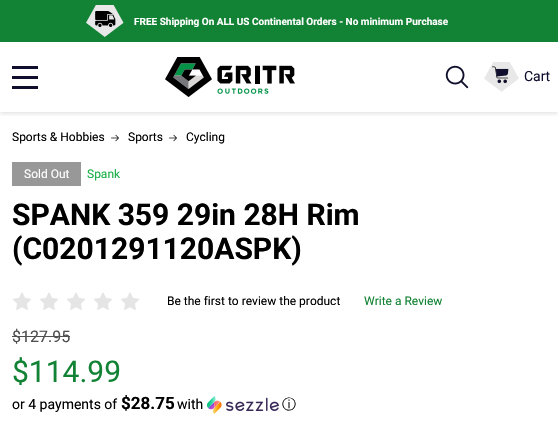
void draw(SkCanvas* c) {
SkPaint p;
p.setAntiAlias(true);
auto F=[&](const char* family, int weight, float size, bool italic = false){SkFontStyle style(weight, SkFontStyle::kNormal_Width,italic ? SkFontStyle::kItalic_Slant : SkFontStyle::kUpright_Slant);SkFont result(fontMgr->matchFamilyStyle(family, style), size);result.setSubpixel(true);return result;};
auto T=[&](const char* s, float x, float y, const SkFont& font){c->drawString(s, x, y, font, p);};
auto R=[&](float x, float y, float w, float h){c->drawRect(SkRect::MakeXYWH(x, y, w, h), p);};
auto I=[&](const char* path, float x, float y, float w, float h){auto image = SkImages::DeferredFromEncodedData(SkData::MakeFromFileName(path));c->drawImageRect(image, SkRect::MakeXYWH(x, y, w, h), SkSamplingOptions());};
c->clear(0xffffffff);
p.setColor(0xff128234);
R(0,0,558,42);
I("1.png",86,5,38,32);
auto f1 = F("Roboto",700,10);
p.setColor(0xffffffff);
T("FREE Shipping On ALL US Continental Orders - No minimum Purchase",134,25,f1);
c->save();
c->clipRect(SkRect::MakeXYWH(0,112,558,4));
p.setColor(0x1a000000);
p.setMaskFilter(SkMaskFilter::MakeBlur(kNormal_SkBlurStyle, 2));
c->drawRect(SkRect::MakeXYWH(0,44,558,70),p);
p.setMaskFilter(nullptr);
c->restore();
p.setColor(0xff0f0f2d);
R(12,76,26,3);
R(12,66,26,3);
R(12,86,26,3);
I("2.png",165,57,130,40);
I("3.png",445,65,24,24);
I("4.png",484,62,35,30);
auto f2 = F("Roboto",400,14);
T("Cart",524,81,f2);
auto f3 = F("Roboto",400,12);
p.setColor(0xff000000);
T("Sports & Hobbies",12,141,f3);
I("5.png",111,134,8,8);
T("Sports",128,141,f3);
I("5.png",169,134,8,8);
T("Cycling",186,141,f3);
p.setColor(0xff989898);
R(12,162,69,24);
p.setColor(0xffffffff);
T("Sold Out",24,178,f3);
p.setColor(0xff18af46);
T("Spank",87,178,f3);
auto f4 = F("Roboto",700,30);
p.setColor(0xff000000);
T("SPANK 359 29in 28H Rim",12,225,f4);
T("(C0201291120ASPK)",12,259,f4);
I("6.png",13,292,18,18);
I("6.png",40,292,18,18);
I("6.png",67,292,18,18);
I("6.png",94,292,18,18);
I("6.png",121,292,18,18);
T("Be the first to review the product",167,305,f3);
p.setColor(0xff128234);
T("Write a Review",364,305,f3);
auto f5 = F("Roboto",400,16);
p.setColor(0xff4f4f4f);
T("$127.95",12,342,f5);
R(12,336,58,1);
auto f6 = F("Roboto",400,30);
p.setColor(0xff128234);
T("$114.99",12,382,f6);
p.setColor(0xff000000);
T("or 4 payments of",12,409,f2);
auto f7 = F("Roboto",700,17);
T("$28.75",121,409,f7);
T("with",177,409,f2);
I("7.png",207,396,72,18);
auto f8 = F("WenQuanYi Zen Hei",500,14);
T("ⓘ",282,409,f8);
}
